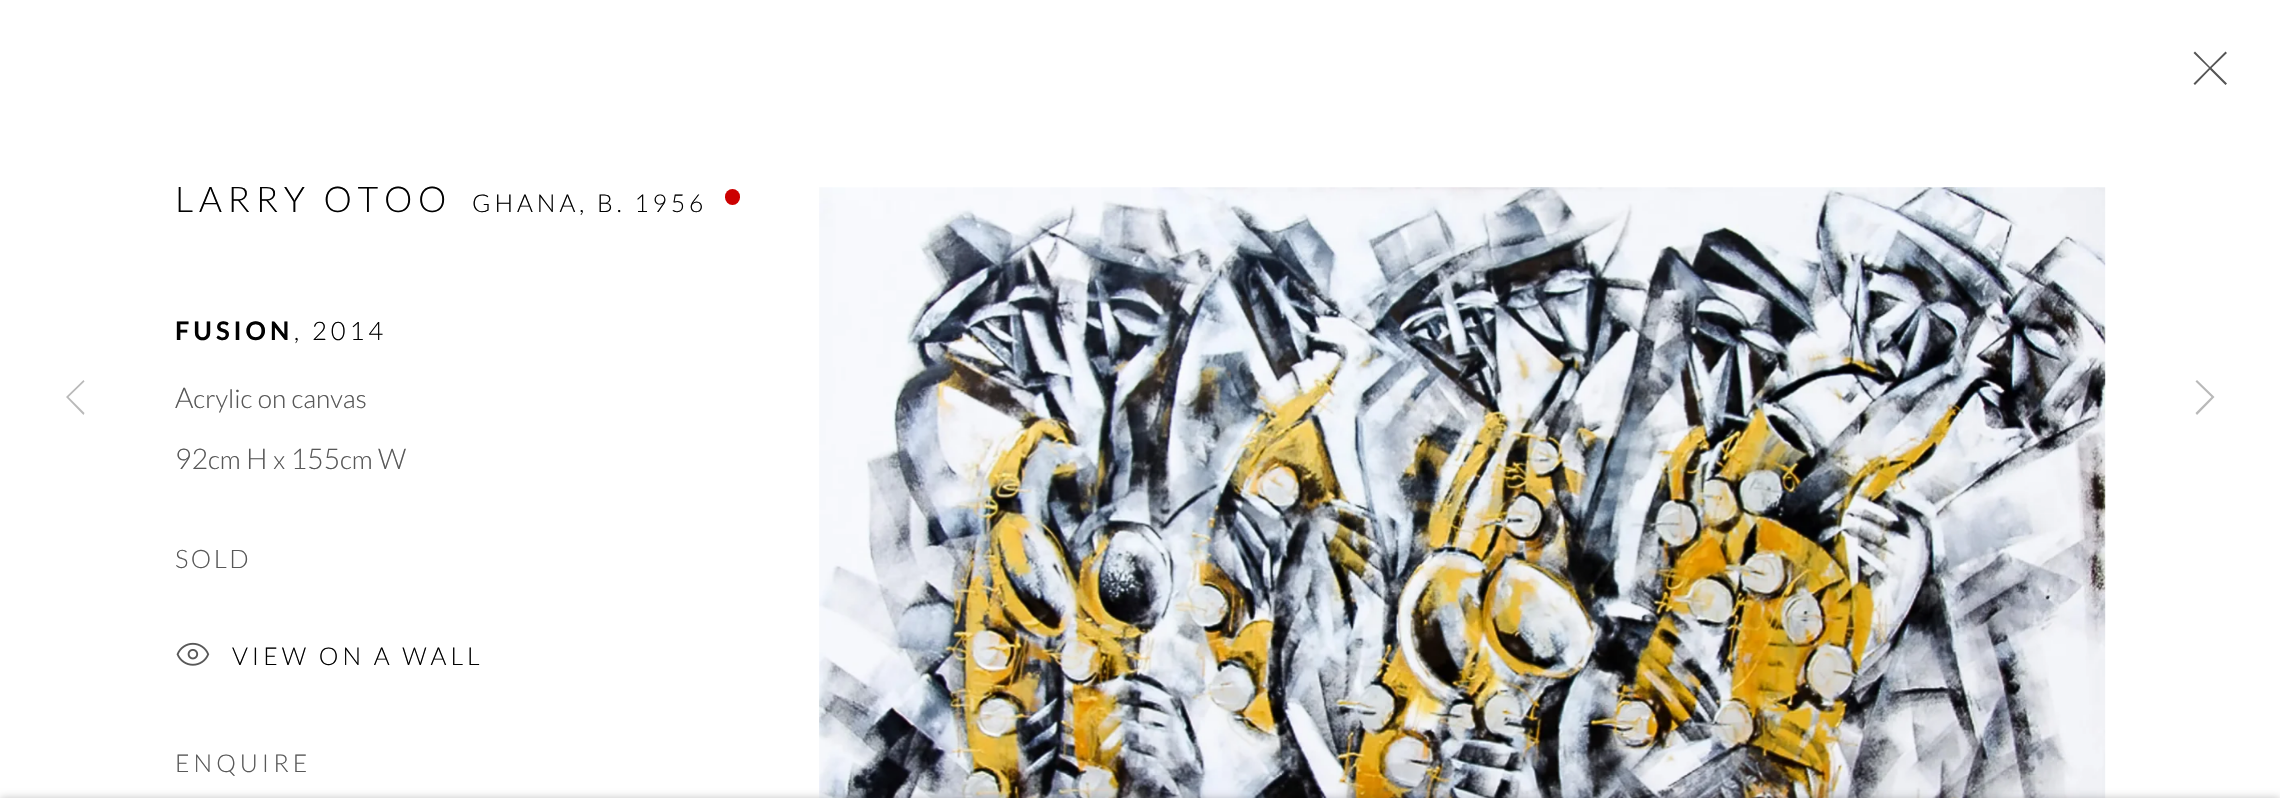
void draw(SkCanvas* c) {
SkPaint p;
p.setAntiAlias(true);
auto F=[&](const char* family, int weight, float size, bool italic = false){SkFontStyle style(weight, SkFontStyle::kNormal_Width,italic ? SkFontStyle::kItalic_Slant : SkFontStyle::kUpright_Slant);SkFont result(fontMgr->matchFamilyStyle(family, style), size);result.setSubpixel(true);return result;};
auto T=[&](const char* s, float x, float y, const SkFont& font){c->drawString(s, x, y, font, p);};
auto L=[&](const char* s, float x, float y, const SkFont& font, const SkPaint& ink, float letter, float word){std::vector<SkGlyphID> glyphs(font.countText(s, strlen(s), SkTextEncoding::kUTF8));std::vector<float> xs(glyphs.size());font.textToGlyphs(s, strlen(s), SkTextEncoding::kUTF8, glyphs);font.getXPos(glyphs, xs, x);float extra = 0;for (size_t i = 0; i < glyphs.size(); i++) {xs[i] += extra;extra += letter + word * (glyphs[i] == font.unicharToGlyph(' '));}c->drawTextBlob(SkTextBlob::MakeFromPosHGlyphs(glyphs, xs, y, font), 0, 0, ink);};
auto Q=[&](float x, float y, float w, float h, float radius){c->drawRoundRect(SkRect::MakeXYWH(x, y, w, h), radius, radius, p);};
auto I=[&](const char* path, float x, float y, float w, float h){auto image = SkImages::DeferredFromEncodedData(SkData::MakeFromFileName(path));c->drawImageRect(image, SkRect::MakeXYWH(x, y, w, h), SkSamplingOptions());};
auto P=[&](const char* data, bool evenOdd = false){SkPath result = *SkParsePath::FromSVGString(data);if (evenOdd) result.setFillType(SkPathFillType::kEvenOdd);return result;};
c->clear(0xffffffff);
p.setColor(0xff555555);
c->drawPath(P("M2227 53l-1.5-1.5l-15.5 15.5l-15-15.5l-1.5 1.5l15.5 15l-15.5 15.5l1.5 1.5l15-15.5l15.5 15.5l1.5-1.5l-15.5-15.5z"),p);
auto f1 = F("Lato",300,35.5);
p.setColor(0xff010101);
L("LARRY OTOO",175,212,f1,p,5.75,0);
auto f2 = F("Lato",300,24.6);
L("GHANA, B. 1956",472,212,f2,p,4,0);
p.setColor(0xffcc0000);
Q(725,189,15,16,7.5);
auto f3 = F("Lato",700,25.5);
p.setColor(0xff010101);
L("FUSION",175,340,f3,p,4,0);
auto f4 = F("Lato",300,25.5);
L(", 2014",294,340,f4,p,4,0);
auto f5 = F("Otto",300,28.5);
p.setColor(0xff585858);
T("Acrylic on canvas",175,408,f5);
T("92cm H x 155cm W",175,469,f5);
L("SOLD",175,568,f4,p,2.5,0);
I("1.png",176,642,34,24);
p.setColor(0xff010101);
L("VIEW ON A WALL",232,665,f2,p,4,0);
p.setColor(0xff585858);
L("ENQUIRE",175,772,f2,p,4,0);
I("2.png",819,187,1287,611);
p.setColor(0xffb9b9b9);
c->drawPath(P("M67.5 398.5l16 16.5l1-2l-16-16l16-15.5l-1-1.5l-17.5 17z"),p);
c->drawPath(P("M2214.5 397l-17.5-17l-1.5 1.5l16 15.5l-16 16l1.5 2z"),p);
p.setColor(0x3b000000);
p.setMaskFilter(SkMaskFilter::MakeBlur(kNormal_SkBlurStyle, 4.5));
c->drawRect(SkRect::MakeXYWH(0,798,2280,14),p);
p.setMaskFilter(nullptr);
}
